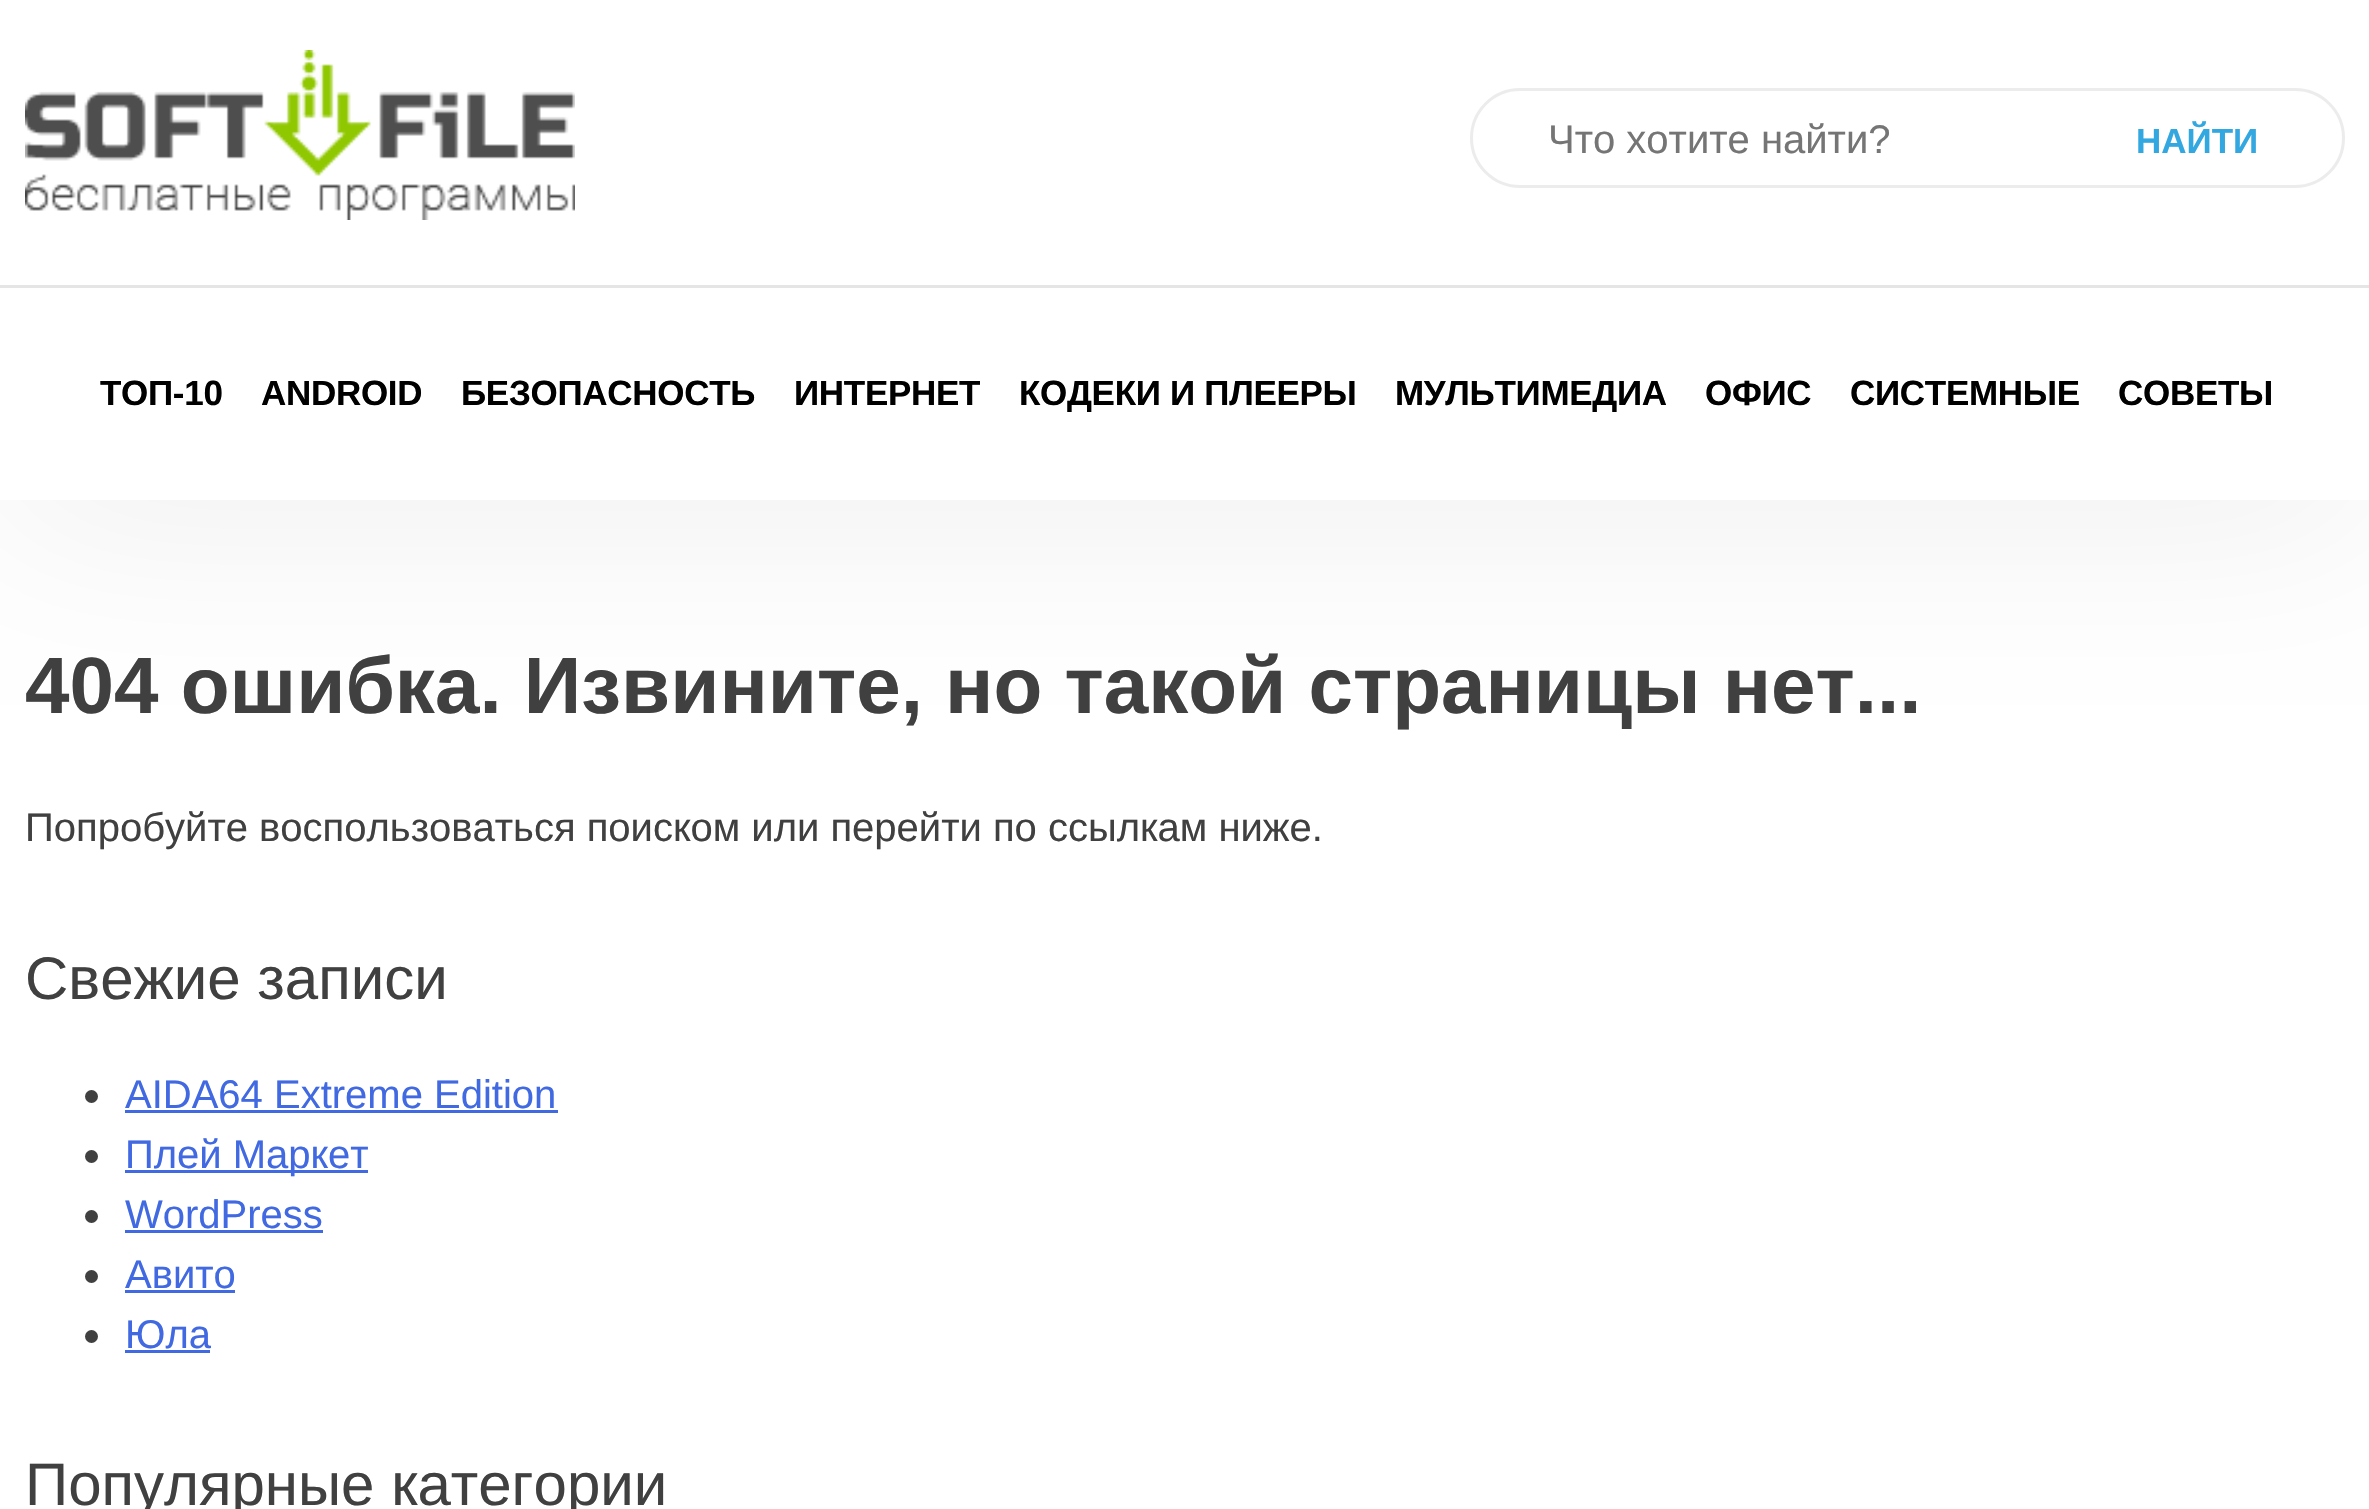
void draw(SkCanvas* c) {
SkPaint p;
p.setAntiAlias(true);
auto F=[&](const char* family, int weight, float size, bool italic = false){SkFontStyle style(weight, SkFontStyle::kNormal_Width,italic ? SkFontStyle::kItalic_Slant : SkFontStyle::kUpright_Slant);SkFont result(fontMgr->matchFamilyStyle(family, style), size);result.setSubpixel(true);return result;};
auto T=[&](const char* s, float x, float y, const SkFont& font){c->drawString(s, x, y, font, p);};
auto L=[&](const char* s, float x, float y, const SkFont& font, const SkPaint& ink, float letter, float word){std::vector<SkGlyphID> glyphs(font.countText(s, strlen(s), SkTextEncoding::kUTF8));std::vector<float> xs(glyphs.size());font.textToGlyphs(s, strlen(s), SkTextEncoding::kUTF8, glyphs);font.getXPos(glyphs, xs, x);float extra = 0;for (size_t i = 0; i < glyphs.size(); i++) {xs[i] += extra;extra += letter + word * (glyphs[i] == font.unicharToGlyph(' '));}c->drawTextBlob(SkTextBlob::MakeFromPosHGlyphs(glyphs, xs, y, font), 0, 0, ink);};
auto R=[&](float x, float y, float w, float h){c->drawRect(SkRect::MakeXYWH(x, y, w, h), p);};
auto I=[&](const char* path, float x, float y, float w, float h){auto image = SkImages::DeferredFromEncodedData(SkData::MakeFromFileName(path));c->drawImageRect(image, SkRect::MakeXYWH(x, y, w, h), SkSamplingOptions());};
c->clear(0xffffffff);
c->save();
c->clipRect(SkRect::MakeXYWH(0,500,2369,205));
p.setColor(0xffeaeaea);
p.setMaskFilter(SkMaskFilter::MakeBlur(kNormal_SkBlurStyle, 100));
c->drawRect(SkRect::MakeXYWH(0,0,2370,500),p);
p.setMaskFilter(nullptr);
c->restore();
p.setColor(0xffe5e5e5);
R(0,285,2369,3);
I("1.png",25,50,550,170);
p.setStroke(true);
p.setStrokeWidth(3);
p.setColor(0xffececec);
c->drawRoundRect(SkRect::MakeXYWH(1471.5,89.5,872,97),48.5,48.5,p);
auto f1 = F("Liberation Sans",400,40);
p.setStroke(false);
p.setColor(0xff757575);
T("Что хотите найти?",1548,153,f1);
auto f2 = F("Liberation Sans",700,35);
p.setColor(0xff32a7e0);
T("НАЙТИ",2136,153,f2);
p.setColor(0xff000000);
L("ТОП-10",100,405,f2,p,-.3,0);
L("ANDROID",261,405,f2,p,-.3,0);
L("БЕЗОПАСНОСТЬ",461,405,f2,p,-.3,0);
L("ИНТЕРНЕТ",794,405,f2,p,-.3,0);
L("КОДЕКИ И ПЛЕЕРЫ",1019,405,f2,p,-.3,0);
L("МУЛЬТИМЕДИА",1395,405,f2,p,-.3,0);
L("ОФИС",1705,405,f2,p,-.3,0);
L("СИСТЕМНЫЕ",1850,405,f2,p,-.3,0);
L("СОВЕТЫ",2118,405,f2,p,-.3,0);
auto f3 = F("Liberation Sans",700,80);
p.setColor(0xff404040);
T("404 ошибка. Извините, но такой страницы нет...",25,713,f3);
T("Попробуйте воспользоваться поиском или перейти по ссылкам ниже.",25,841,f1);
auto f4 = F("Liberation Sans",400,60);
T("Свежие записи",25,999,f4);
c->drawCircle(91.5,1096.5,6.5,p);
p.setColor(0xff4169e1);
T("AIDA64 Extreme Edition",125,1108,f1);
R(125,1110,433,3);
p.setColor(0xff404040);
c->drawCircle(91.5,1156.5,6.5,p);
p.setColor(0xff4169e1);
R(125,1170,243,3);
T("Плей Маркет",125,1168,f1);
p.setColor(0xff404040);
c->drawCircle(91.5,1216.5,6.5,p);
p.setColor(0xff4169e1);
T("WordPress",125,1228,f1);
R(125,1230,198,3);
p.setColor(0xff404040);
c->drawCircle(91.5,1276.5,6.5,p);
p.setColor(0xff4169e1);
T("Авито",125,1288,f1);
R(125,1290,110,3);
p.setColor(0xff404040);
c->drawCircle(91.5,1336.5,6.5,p);
p.setColor(0xff4169e1);
T("Юла",125,1348,f1);
R(125,1350,85,3);
p.setColor(0xff404040);
T("Популярные категории",25,1505,f4);
}
